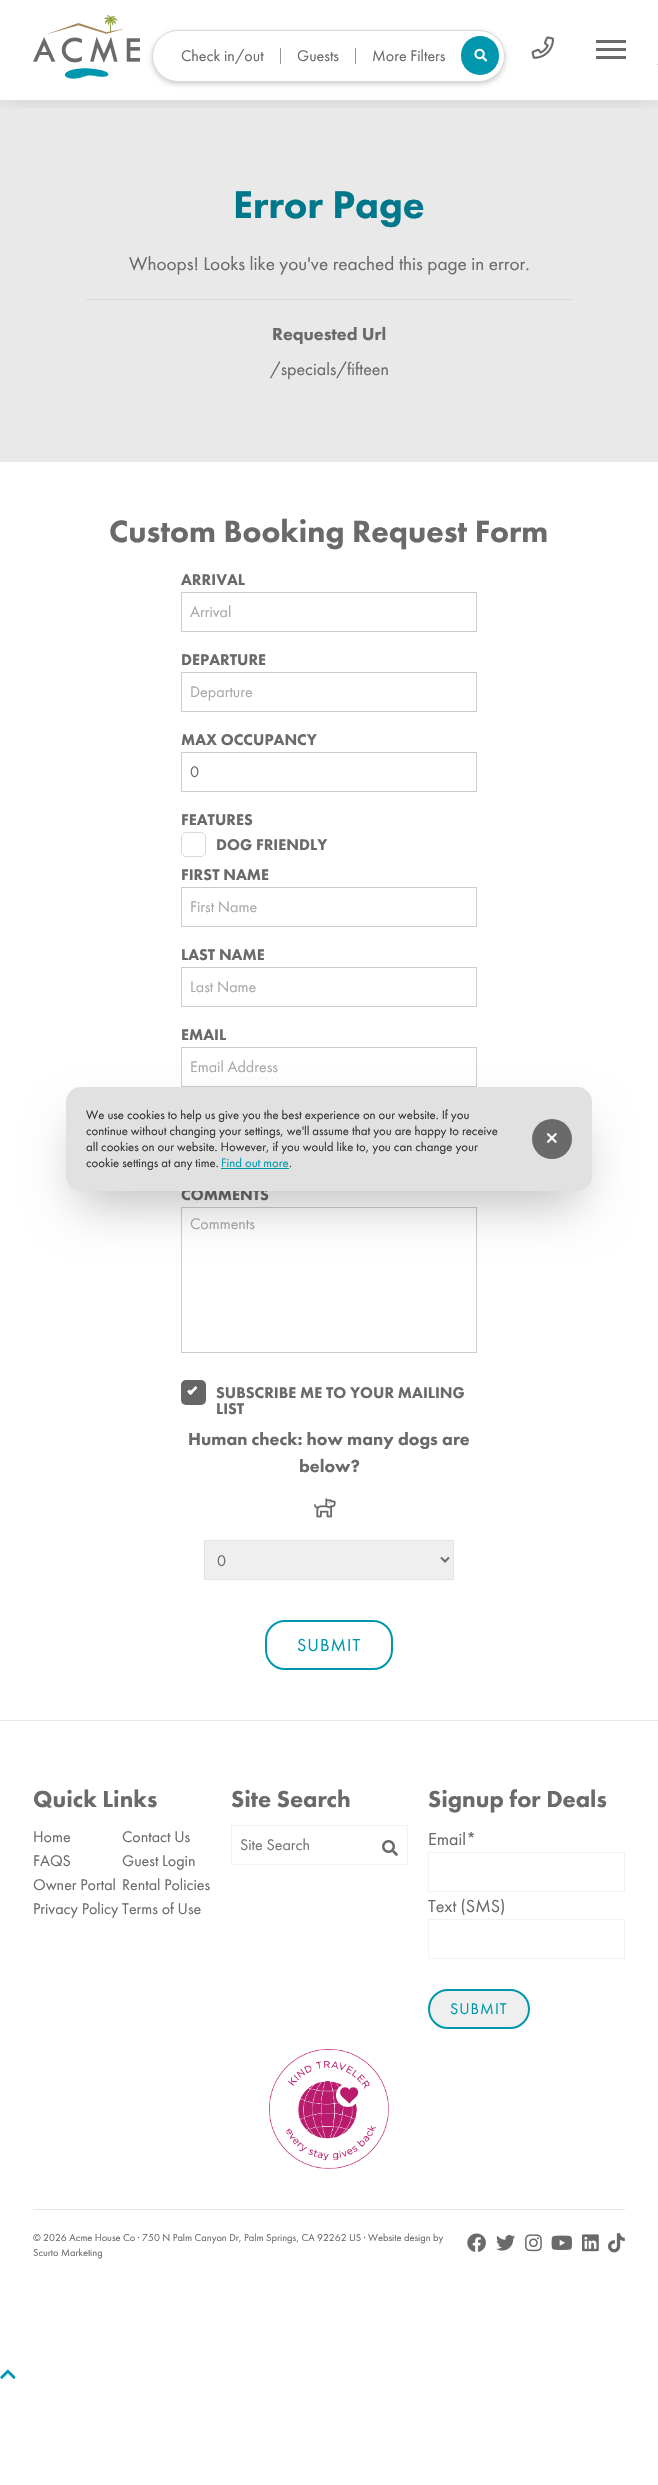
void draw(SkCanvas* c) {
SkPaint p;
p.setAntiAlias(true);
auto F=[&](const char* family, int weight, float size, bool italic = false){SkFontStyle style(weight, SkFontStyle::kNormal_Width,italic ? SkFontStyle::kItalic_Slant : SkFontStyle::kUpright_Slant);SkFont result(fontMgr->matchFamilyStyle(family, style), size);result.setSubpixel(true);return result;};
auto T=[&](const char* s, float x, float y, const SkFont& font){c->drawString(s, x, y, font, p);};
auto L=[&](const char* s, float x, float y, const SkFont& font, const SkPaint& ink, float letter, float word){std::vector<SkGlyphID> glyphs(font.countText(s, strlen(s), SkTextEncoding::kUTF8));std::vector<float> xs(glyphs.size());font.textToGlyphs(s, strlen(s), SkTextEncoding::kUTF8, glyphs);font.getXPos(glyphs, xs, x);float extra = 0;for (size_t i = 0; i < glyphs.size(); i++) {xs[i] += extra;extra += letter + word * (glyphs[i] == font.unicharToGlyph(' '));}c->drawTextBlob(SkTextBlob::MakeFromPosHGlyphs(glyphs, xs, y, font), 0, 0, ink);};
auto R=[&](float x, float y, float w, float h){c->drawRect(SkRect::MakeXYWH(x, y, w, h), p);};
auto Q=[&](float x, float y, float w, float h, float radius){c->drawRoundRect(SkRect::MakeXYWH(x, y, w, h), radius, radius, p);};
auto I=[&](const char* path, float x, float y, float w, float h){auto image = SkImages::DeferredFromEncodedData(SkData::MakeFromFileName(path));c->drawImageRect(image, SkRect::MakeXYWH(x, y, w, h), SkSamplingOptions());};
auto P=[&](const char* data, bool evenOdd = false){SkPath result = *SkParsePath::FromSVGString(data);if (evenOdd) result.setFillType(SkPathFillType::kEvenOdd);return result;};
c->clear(0xffffffff);
p.setColor(0xffe9e9e9);
R(0,100,658,362);
c->save();
c->clipRect(SkRect::MakeXYWH(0,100,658,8));
p.setColor(0x1a000000);
p.setMaskFilter(SkMaskFilter::MakeBlur(kNormal_SkBlurStyle, 10));
c->drawRect(SkRect::MakeXYWH(0,0,658,100),p);
p.setMaskFilter(nullptr);
c->restore();
I("1.png",33,15,107,64);
p.setColor(0x33000000);
p.setMaskFilter(SkMaskFilter::MakeBlur(kNormal_SkBlurStyle, 2.5));
c->drawRoundRect(SkRect::MakeXYWH(152,32,353,52),26,26,p);
p.setMaskFilter(nullptr);
p.setColor(0xffffffff);
c->drawRoundRect(SkRect::MakeXYWH(152.5,30.5,352,51),25.5,25.5,p);
p.setStroke(true);
p.setStrokeWidth(1);
p.setColor(0xffd9d9d9);
c->drawRoundRect(SkRect::MakeXYWH(152.5,30.5,352,51),25.5,25.5,p);
auto f1 = F("Futura PT",400,16);
p.setStroke(false);
p.setColor(0xff6a6a6a);
T("Check in/out",181,61,f1);
p.setColor(0xff999999);
R(280,48,1,16);
p.setColor(0xff6a6a6a);
T("Guests",297,61,f1);
p.setColor(0xff999999);
R(355,48,1,16);
p.setColor(0xff6a6a6a);
T("More Filters",372,61,f1);
p.setColor(0xff0097ae);
Q(461,36,38,39,19);
I("2.png",474,48,14,14);
I("3.png",531,36,23,23);
p.setColor(0xff6a6a6a);
R(596,48,30,3);
R(596,40,30,3);
R(596,56,30,3);
p.setStroke(true);
p.setColor(0xff9e9c9b);
p.setPathEffect(SkDashPathEffect::Make({{1,1}}, 0));
c->drawPath(P("M657.5 64.5h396"),p);
p.setPathEffect(nullptr);
auto f2 = F("Futura PT",900,40);
p.setStroke(false);
p.setColor(0xff00788b);
T("Error Page",233,218,f2);
auto f3 = F("Futura PT",400,19.2);
p.setColor(0xff6a6a6a);
T("Whoops! Looks like you've reached this page in error.",129,270,f3);
p.setColor(0xffd9d9d9);
R(86,299,486,1);
auto f4 = F("Futura PT",900,18);
p.setColor(0xff6a6a6a);
T("Requested Url",272,340,f4);
auto f5 = F("Futura PT",400,18);
T("/specials/fifteen",270,375,f5);
auto f6 = F("Futura PT",900,32);
T("Custom Booking Request Form",109,542,f6);
auto f7 = F("Futura PT",900,16);
T("ARRIVAL",181,585,f7);
p.setStroke(true);
p.setColor(0xffcccccc);
c->drawRect(SkRect::MakeXYWH(181.5,592.5,295,39),p);
p.setStroke(false);
p.setColor(0xffaaaaaa);
T("Arrival",190,617,f1);
p.setColor(0xff6a6a6a);
T("DEPARTURE",181,665,f7);
p.setStroke(true);
p.setColor(0xffcccccc);
c->drawRect(SkRect::MakeXYWH(181.5,672.5,295,39),p);
p.setStroke(false);
p.setColor(0xffaaaaaa);
T("Departure",190,697,f1);
p.setColor(0xff6a6a6a);
T("MAX OCCUPANCY",181,745,f7);
p.setStroke(true);
p.setColor(0xffcccccc);
c->drawRect(SkRect::MakeXYWH(181.5,752.5,295,39),p);
p.setStroke(false);
p.setColor(0xff6a6a6a);
T("0",190,777,f1);
T("FEATURES",181,825,f7);
p.setStroke(true);
p.setColor(0xffd9d9d9);
c->drawRoundRect(SkRect::MakeXYWH(181.5,832.5,24,24),4.5,4.5,p);
p.setStroke(false);
p.setColor(0xff6a6a6a);
T("DOG FRIENDLY",216,850,f7);
T("FIRST NAME",181,880,f7);
p.setStroke(true);
p.setColor(0xffcccccc);
c->drawRect(SkRect::MakeXYWH(181.5,887.5,295,39),p);
p.setStroke(false);
p.setColor(0xffaaaaaa);
T("First Name",190,912,f1);
p.setColor(0xff6a6a6a);
T("LAST NAME",181,960,f7);
p.setStroke(true);
p.setColor(0xffcccccc);
c->drawRect(SkRect::MakeXYWH(181.5,967.5,295,39),p);
p.setStroke(false);
p.setColor(0xffaaaaaa);
T("Last Name",190,992,f1);
p.setColor(0xff6a6a6a);
T("EMAIL",181,1040,f7);
p.setStroke(true);
p.setColor(0xffcccccc);
c->drawRect(SkRect::MakeXYWH(181.5,1047.5,295,39),p);
p.setStroke(false);
p.setColor(0xffaaaaaa);
T("Email Address",190,1072,f1);
p.setColor(0xff6a6a6a);
T("COMMENTS",181,1200,f7);
p.setStroke(true);
p.setColor(0xffcccccc);
c->drawRect(SkRect::MakeXYWH(181.5,1207.5,295,145),p);
p.setStroke(false);
p.setColor(0xffaaaaaa);
T("Comments",190,1229,f1);
p.setColor(0xff666666);
Q(181,1380,25,25,5);
p.setColor(0xffffffff);
c->drawPath(P("M195.5 1386l2 2l-7 7l-2-2z"),p);
c->drawPath(P("M189.5 1389.5l3.5 3.5l-2.5 2l-3.5-3.5z"),p);
p.setColor(0xff6a6a6a);
T("SUBSCRIBE ME TO YOUR MAILING",216,1398,f7);
T("LIST",216,1414,f7);
T("Human check: how many dogs are",188,1445,f4);
T("below?",299,1472,f4);
I("4.png",314,1498,22,20);
p.setColor(0xffefefef);
c->drawRect(SkRect::MakeXYWH(204.5,1540.5,249,39),p);
p.setStroke(true);
p.setColor(0xffe3e3e3);
c->drawRect(SkRect::MakeXYWH(204.5,1540.5,249,39),p);
p.setStrokeWidth(2);
p.setColor(0xff6a6a6a);
c->drawPath(P("M441 1557.5l4 4l4-4"),p);
p.setStroke(false);
T("0",217,1566,f1);
p.setStroke(true);
p.setColor(0xff0097ae);
c->drawRoundRect(SkRect::MakeXYWH(266,1621,126,48),19,19,p);
p.setStroke(false);
L("SUBMIT",297,1651,f5,p,1,0);
p.setColor(0xffe6e6e6);
R(0,1720,658,1);
auto f8 = F("Futura PT",900,24);
p.setColor(0xff6a6a6a);
T("Quick Links",33,1807,f8);
T("Home",33,1842,f1);
T("Contact Us",122,1842,f1);
T("FAQS",33,1866,f1);
T("Guest Login",122,1866,f1);
T("Owner Portal",33,1890,f1);
T("Rental Policies",122,1890,f1);
T("Privacy Policy Terms of Use",33,1914,f1);
T("Site Search",231,1807,f8);
p.setStroke(true);
p.setStrokeWidth(1);
p.setColor(0xfff2f2f2);
c->drawRect(SkRect::MakeXYWH(231.5,1825.5,176,39),p);
p.setStroke(false);
p.setColor(0xff757575);
T("Site Search",240,1850,f1);
I("5.png",382,1840,16,16);
p.setColor(0xff6a6a6a);
T("Signup for Deals",428,1807,f8);
T("Email*",428,1845,f5);
p.setStroke(true);
p.setColor(0xfff2f2f2);
c->drawRect(SkRect::MakeXYWH(428.5,1852.5,196,39),p);
p.setStroke(false);
p.setColor(0xff6a6a6a);
T("Text (SMS)",428,1912,f5);
p.setStroke(true);
p.setColor(0xfff2f2f2);
c->drawRect(SkRect::MakeXYWH(428.5,1919.5,196,39),p);
p.setStroke(false);
p.setColor(0xffefefef);
c->drawRoundRect(SkRect::MakeXYWH(429,1990,100,38),19,19,p);
p.setStroke(true);
p.setStrokeWidth(2);
p.setColor(0xff0097ae);
c->drawRoundRect(SkRect::MakeXYWH(429,1990,100,38),19,19,p);
p.setStroke(false);
L("SUBMIT",450,2014,f1,p,1,0);
I("6.png",269,2049,120,120);
p.setColor(0xffe6e6e6);
R(33,2209,592,1);
auto f9 = F("Futura PT",400,10.4);
p.setColor(0xff6a6a6a);
T("© 2026 Acme House Co · 750 N Palm Canyon Dr, Palm Springs, CA 92262 US · Website design by",33,2241,f9);
T("Scurto Marketing",33,2256,f9);
I("7.png",467,2233,19,19);
I("8.png",496,2235,19,16);
I("9.png",525,2234,17,18);
I("10.png",551,2235,22,15);
I("11.png",582,2234,17,18);
I("12.png",608,2233,17,20);
p.setColor(0x40000000);
p.setMaskFilter(SkMaskFilter::MakeBlur(kNormal_SkBlurStyle, 25));
c->drawRoundRect(SkRect::MakeXYWH(78,1124,502,80),3,3,p);
p.setMaskFilter(nullptr);
p.setColor(0xffe1e1e1);
Q(66,1087,526,104,15);
auto f10 = F("Futura PT",400,12.8);
p.setColor(0xff333333);
T("We use cookies to help us give you the best experience on our website. If you",86,1119,f10);
T("continue without changing your settings, we'll assume that you are happy to receive",86,1135,f10);
p.setColor(0xff6a6a6a);
c->drawCircle(552,1139,20,p);
I("13.png",546,1133,11,10);
p.setColor(0xff333333);
T("all cookies on our website. However, if you would like to, you can change your",86,1151,f10);
T("cookie settings at any time.",86,1167,f10);
p.setColor(0xff0097ae);
T("Find out more",221,1167,f10);
R(221,1168,68,1);
p.setColor(0xff333333);
T(".",289,1167,f10);
I("14.png",0,2369,16,10);
}
